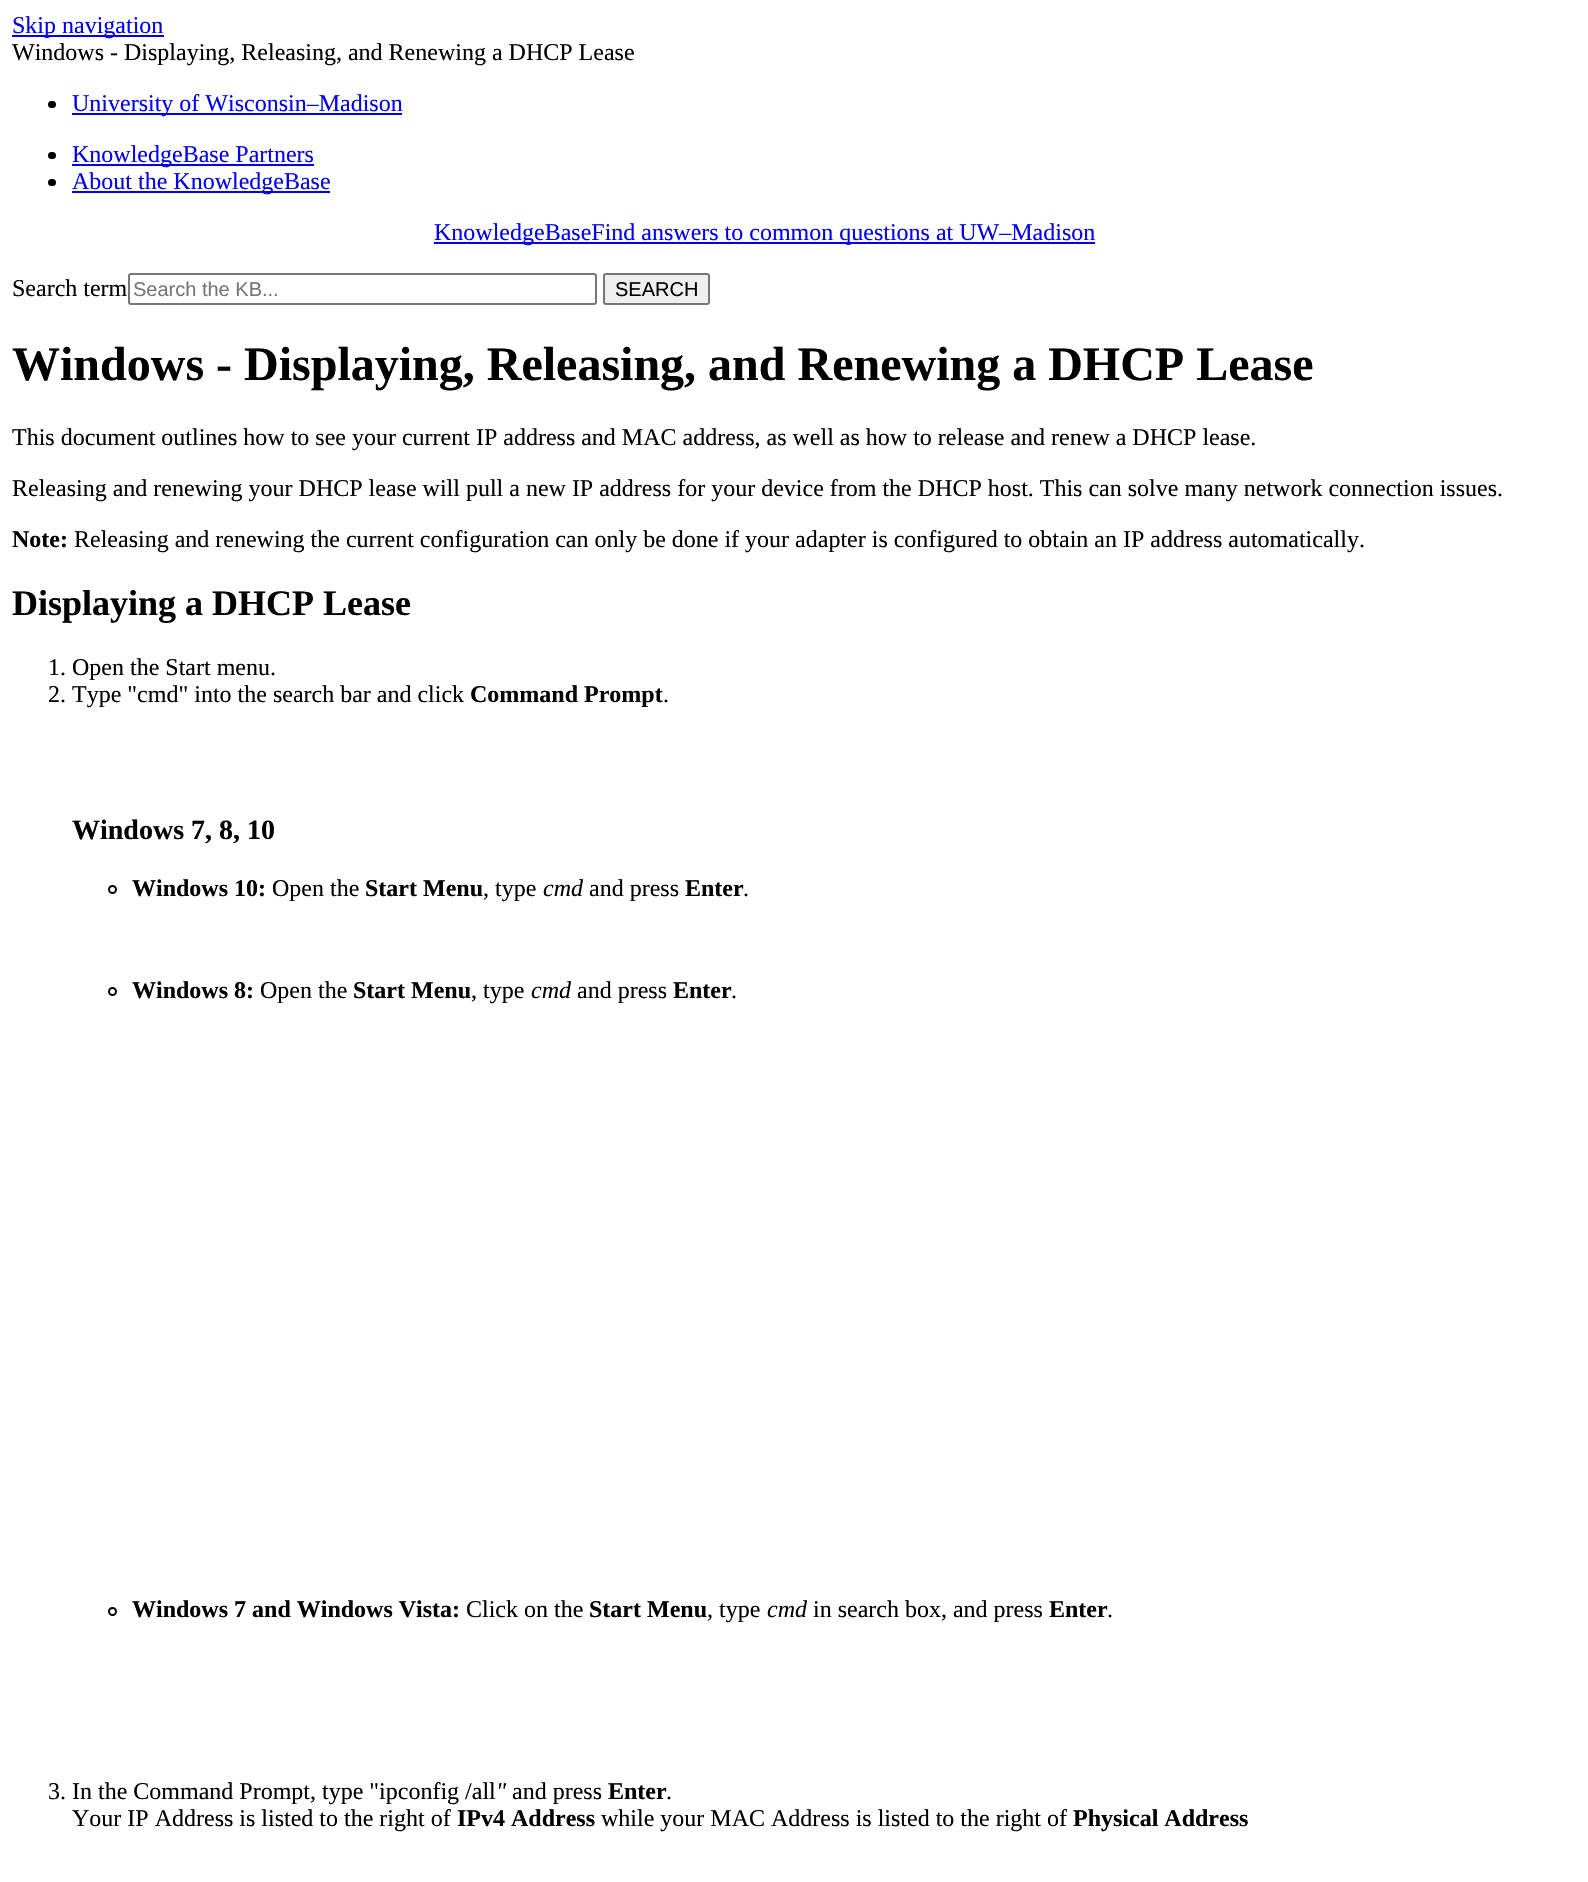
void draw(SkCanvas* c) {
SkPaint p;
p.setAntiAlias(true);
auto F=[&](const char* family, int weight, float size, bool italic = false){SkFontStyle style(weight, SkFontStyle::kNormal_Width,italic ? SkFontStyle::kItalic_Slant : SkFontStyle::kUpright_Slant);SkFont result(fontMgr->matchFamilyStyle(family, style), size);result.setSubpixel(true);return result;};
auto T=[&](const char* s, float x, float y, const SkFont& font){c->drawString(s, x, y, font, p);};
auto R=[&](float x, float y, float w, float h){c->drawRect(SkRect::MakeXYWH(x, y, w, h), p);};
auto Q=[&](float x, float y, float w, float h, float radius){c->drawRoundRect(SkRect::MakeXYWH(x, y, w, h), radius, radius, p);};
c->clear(0xffffffff);
p.setColor(0xff0000ee);
R(12,35,152,2);
auto f1 = F("Liberation Serif",400,24);
T("Skip navigation",12,33,f1);
p.setColor(0xff000000);
T("Windows - Displaying, Releasing, and Renewing a DHCP Lease",12,60,f1);
Q(48,101,8,7,3.5);
p.setColor(0xff0000ee);
R(72,113,330,2);
T("University of Wisconsin–Madison",72,111,f1);
p.setColor(0xff000000);
Q(48,152,8,7,3.5);
p.setColor(0xff0000ee);
R(72,164,242,2);
T("KnowledgeBase Partners",72,162,f1);
p.setColor(0xff000000);
Q(48,179,8,7,3.5);
p.setColor(0xff0000ee);
R(72,191,258,2);
T("About the KnowledgeBase",72,189,f1);
R(434,242,661,2);
T("KnowledgeBaseFind answers to common questions at UW–Madison",434,240,f1);
p.setColor(0xff000000);
T("Search term",12,296,f1);
p.setStroke(true);
p.setStrokeWidth(2);
p.setColor(0xff767676);
c->drawRoundRect(SkRect::MakeXYWH(129,274,467,30),2,2,p);
auto f2 = F("Liberation Sans",400,20);
p.setStroke(false);
p.setColor(0xff757575);
T("Search the KB...",133,296,f2);
p.setColor(0xffefefef);
c->drawRoundRect(SkRect::MakeXYWH(604,274,105,30),2,2,p);
p.setStroke(true);
p.setColor(0xff767676);
c->drawRoundRect(SkRect::MakeXYWH(604,274,105,30),2,2,p);
p.setStroke(false);
p.setColor(0xff000000);
T("SEARCH",615,296,f2);
auto f3 = F("Liberation Serif",700,48);
T("Windows - Displaying, Releasing, and Renewing a DHCP Lease",12,380,f3);
T("This document outlines how to see your current IP address and MAC address, as well as how to release and renew a DHCP lease.",12,445,f1);
T("Releasing and renewing your DHCP lease will pull a new IP address for your device from the DHCP host. This can solve many network connection issues.",12,496,f1);
auto f4 = F("Liberation Serif",700,24);
T("Note:",12,547,f4);
T("Releasing and renewing the current configuration can only be done if your adapter is configured to obtain an IP address automatically.",74,547,f1);
auto f5 = F("Liberation Serif",700,36);
T("Displaying a DHCP Lease",12,615,f5);
T("1. Open the Start menu.",48,675,f1);
T("2. Type \"cmd\" into the search bar and click",48,702,f1);
T("Command Prompt",470,702,f4);
T(".",663,702,f1);
auto f6 = F("Liberation Serif",700,28);
T("Windows 7, 8, 10",72,839,f6);
p.setStroke(true);
c->drawCircle(112.5,889.5,3.5,p);
p.setStroke(false);
T("Windows 10:",132,896,f4);
T("Open the",272,896,f1);
T("Start Menu",365,896,f4);
T(", type",483,896,f1);
auto f7 = F("Liberation Serif",400,24,true);
T("cmd",543,896,f7);
T("and press",589,896,f1);
T("Enter",685,896,f4);
T(".",743,896,f1);
p.setStroke(true);
c->drawCircle(112.5,991.5,3.5,p);
p.setStroke(false);
T("Windows 8:",132,998,f4);
T("Open the",260,998,f1);
T("Start Menu",353,998,f4);
T(", type",471,998,f1);
T("cmd",531,998,f7);
T("and press",577,998,f1);
T("Enter",673,998,f4);
T(".",731,998,f1);
p.setStroke(true);
c->drawCircle(112.5,1611.5,3.5,p);
p.setStroke(false);
T("Windows 7 and Windows Vista:",132,1617,f4);
T("Click on the",466,1617,f1);
T("Start Menu",589,1617,f4);
T(", type",707,1617,f1);
T("cmd",767,1617,f7);
T("in search box, and press",813,1617,f1);
T("Enter",1049,1617,f4);
T(".",1107,1617,f1);
T("3. In the Command Prompt, type \"ipconfig /all",48,1799,f1);
T("\"",496,1799,f7);
T("and press",512,1799,f1);
T("Enter",608,1799,f4);
T(".",666,1799,f1);
T("Your IP Address is listed to the right of",72,1826,f1);
T("IPv4 Address",457,1826,f4);
T("while your MAC Address is listed to the right of",601,1826,f1);
T("Physical Address",1073,1826,f4);
}
